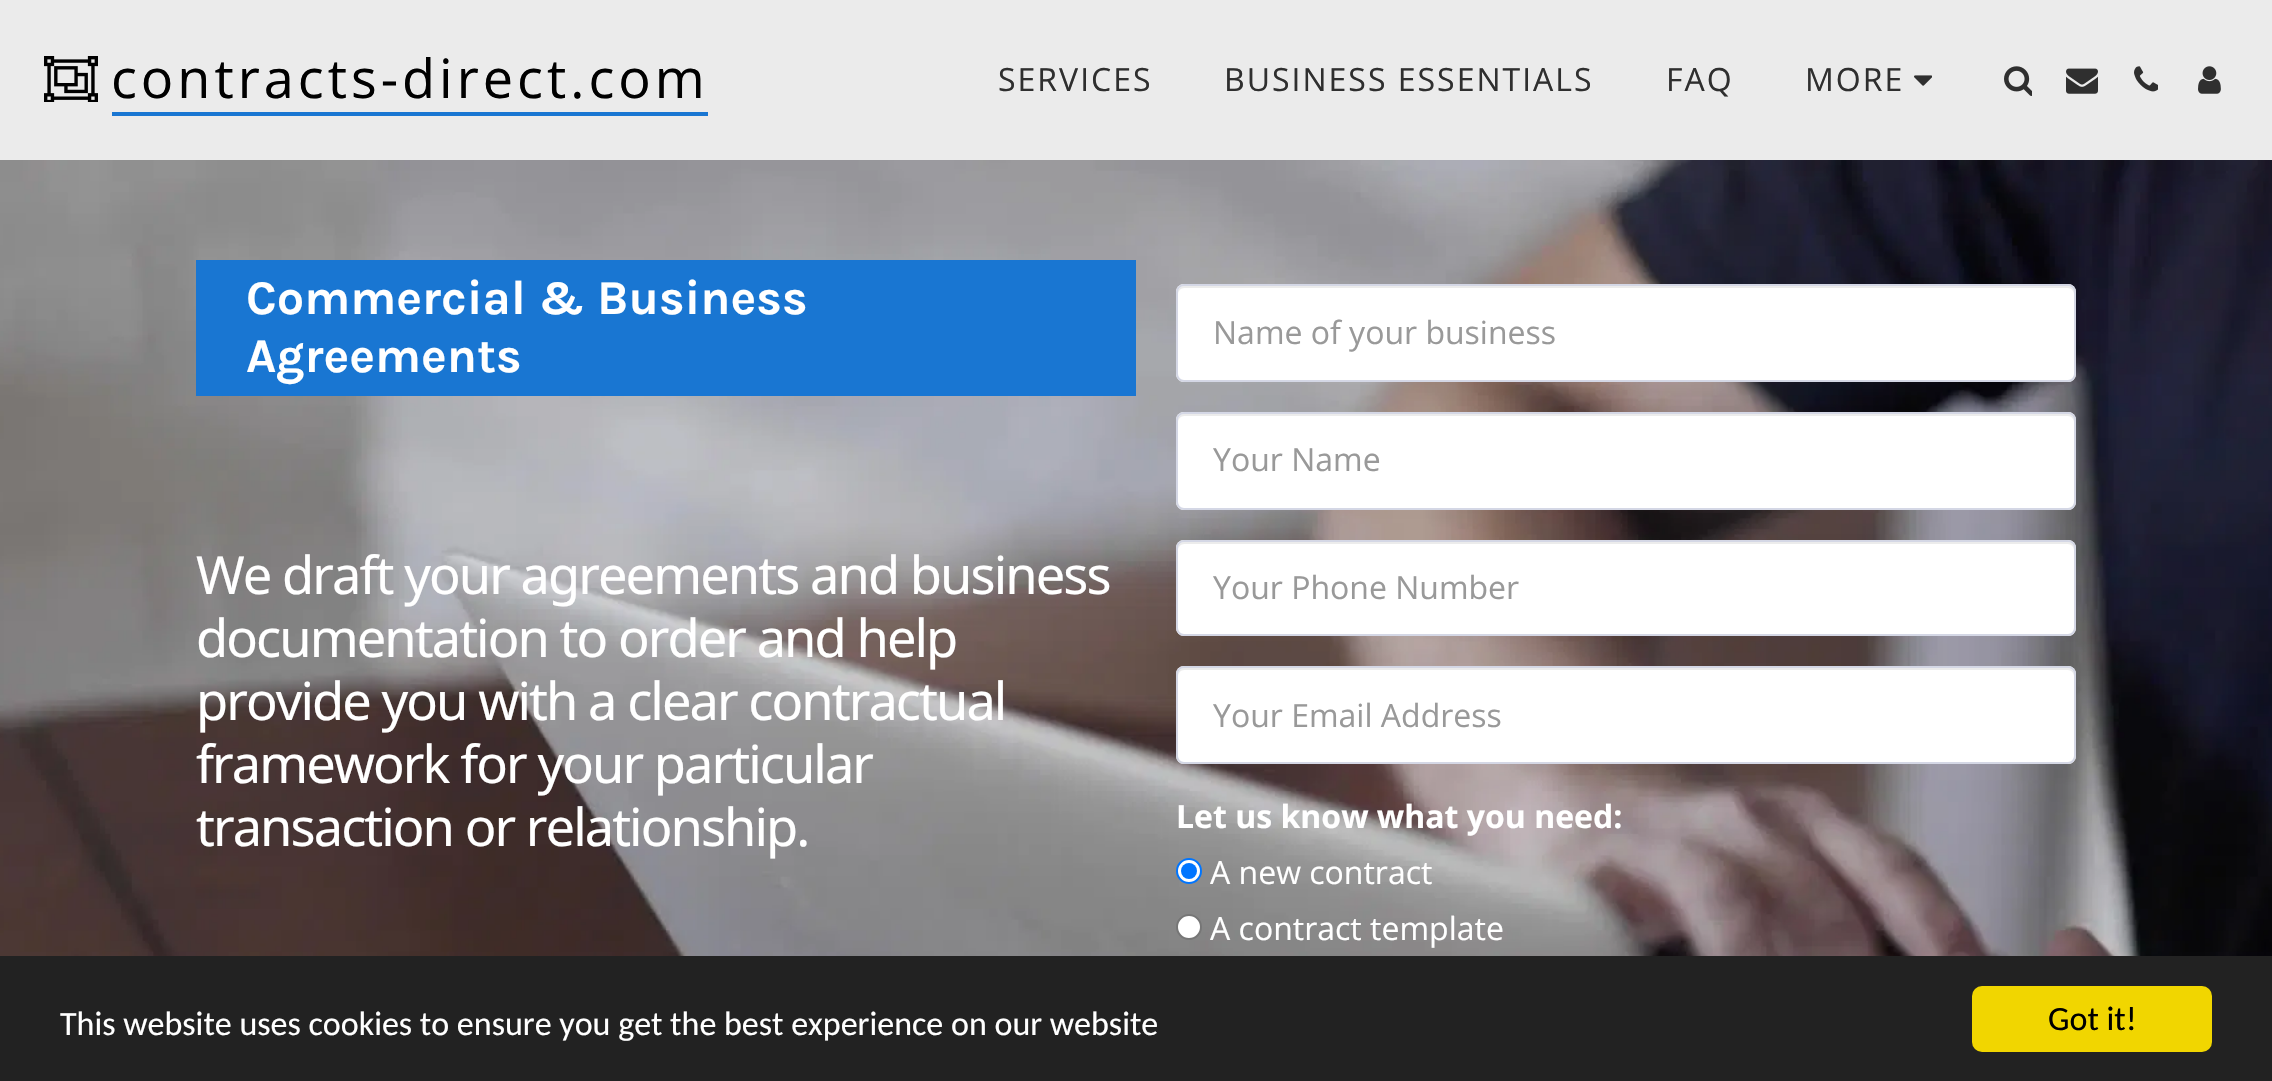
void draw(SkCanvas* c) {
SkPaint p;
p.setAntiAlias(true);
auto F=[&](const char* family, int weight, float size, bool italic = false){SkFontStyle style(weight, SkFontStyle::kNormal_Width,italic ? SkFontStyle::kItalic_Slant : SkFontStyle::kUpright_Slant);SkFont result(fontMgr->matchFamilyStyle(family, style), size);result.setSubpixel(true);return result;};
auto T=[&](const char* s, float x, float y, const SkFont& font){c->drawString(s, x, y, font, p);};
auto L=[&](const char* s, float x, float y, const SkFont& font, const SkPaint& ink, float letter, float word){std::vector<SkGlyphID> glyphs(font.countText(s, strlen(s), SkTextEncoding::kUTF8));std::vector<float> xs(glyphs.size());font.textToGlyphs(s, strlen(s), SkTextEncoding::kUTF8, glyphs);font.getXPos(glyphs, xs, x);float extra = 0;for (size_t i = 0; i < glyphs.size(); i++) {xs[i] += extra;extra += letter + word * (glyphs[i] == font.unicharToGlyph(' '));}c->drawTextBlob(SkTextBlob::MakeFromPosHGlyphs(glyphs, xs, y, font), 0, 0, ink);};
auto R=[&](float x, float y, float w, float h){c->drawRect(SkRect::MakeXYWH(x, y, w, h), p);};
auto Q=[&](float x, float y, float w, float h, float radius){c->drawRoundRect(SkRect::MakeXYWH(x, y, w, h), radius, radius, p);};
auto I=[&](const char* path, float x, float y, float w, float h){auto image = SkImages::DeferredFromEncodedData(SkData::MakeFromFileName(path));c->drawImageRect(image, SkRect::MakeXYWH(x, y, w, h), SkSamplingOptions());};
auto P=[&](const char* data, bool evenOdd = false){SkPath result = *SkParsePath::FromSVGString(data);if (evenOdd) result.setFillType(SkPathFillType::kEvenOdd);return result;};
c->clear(0xffffffff);
p.setColor(0xffebebeb);
R(0,0,2272,160);
I("1.png",44,56,54,46);
p.setColor(0xff1976d2);
R(112,112,596,4);
auto f1 = F("Open Sans",400,54);
p.setColor(0xff000000);
L("contracts-direct.com",111,98,f1,p,4,0);
auto f2 = F("Open Sans",400,32);
p.setColor(0xff2f2f2f);
L("SERVICES",998,91,f2,p,2,0);
L("BUSINESS ESSENTIALS",1224,91,f2,p,2,0);
L("FAQ",1666,91,f2,p,2,0);
L("MORE",1805,91,f2,p,2,0);
I("2.png",1914,75,18,11);
I("3.png",2004,66,28,30);
I("4.png",2066,68,32,26);
I("5.png",2134,66,24,26);
I("6.png",2198,66,23,28);
I("7.png",0,160,2272,796);
p.setColor(0xff1976d2);
R(196,260,940,136);
auto f3 = F("Karla",700,48.5);
p.setColor(0xffffffff);
T("Commercial & Business",246,314,f3);
T("Agreements",246,372,f3);
auto f4 = F("Noto Sans",400,52.4);
L("We draft your agreements and business",196,594,f4,p,-1.95,0);
L("documentation to order and help",196,657,f4,p,-1.95,0);
L("provide you with a clear contractual",196,720,f4,p,-1.95,0);
L("framework for your particular",196,783,f4,p,-1.95,0);
L("transaction or relationship.",196,846,f4,p,-1.95,0);
Q(1176,284,900,98,8);
p.setColor(0xffececec);
c->drawPath(P("M1184 288h884c3 0 6 3 6 6v-2c0-3-3-6-6-6h-884c-3 0-6 3-6 6v2c0-3 3-6 6-6z"),p);
p.setStroke(true);
p.setStrokeWidth(2);
p.setColor(0xffd4d7e5);
c->drawRoundRect(SkRect::MakeXYWH(1177,285,898,96),7,7,p);
p.setStroke(false);
p.setColor(0xff999999);
T("Name of your business",1213,344,f2);
p.setColor(0xffffffff);
Q(1176,412,900,98,8);
p.setColor(0xffececec);
c->drawPath(P("M1184 416h884c3 0 6 3 6 6v-2c0-3-3-6-6-6h-884c-3 0-6 3-6 6v2c0-3 3-6 6-6z"),p);
p.setStroke(true);
p.setColor(0xffd4d7e5);
c->drawRoundRect(SkRect::MakeXYWH(1177,413,898,96),7,7,p);
p.setStroke(false);
p.setColor(0xff999999);
T("Your Name",1213,471,f2);
p.setColor(0xffffffff);
Q(1176,540,900,96,8);
p.setColor(0xffececec);
c->drawPath(P("M1184 544h884c3 0 6 3 6 6v-2c0-3-3-6-6-6h-884c-3 0-6 3-6 6v2c0-3 3-6 6-6z"),p);
p.setStroke(true);
p.setColor(0xffd4d7e5);
c->drawRoundRect(SkRect::MakeXYWH(1177,541,898,94),7,7,p);
p.setStroke(false);
p.setColor(0xff999999);
T("Your Phone Number",1213,599,f2);
p.setColor(0xffffffff);
Q(1176,666,900,98,8);
p.setColor(0xffececec);
c->drawPath(P("M1184 670h884c3 0 6 3 6 6v-2c0-3-3-6-6-6h-884c-3 0-6 3-6 6v2c0-3 3-6 6-6z"),p);
p.setStroke(true);
p.setColor(0xffd4d7e5);
c->drawRoundRect(SkRect::MakeXYWH(1177,667,898,96),7,7,p);
p.setStroke(false);
p.setColor(0xff999999);
T("Your Email Address",1213,727,f2);
auto f5 = F("Open Sans",700,32);
p.setColor(0xffffffff);
T("Let us know what you need:",1176,828,f5);
c->drawCircle(1189,871,12,p);
p.setStroke(true);
p.setColor(0xff0075ff);
c->drawCircle(1189,871,12,p);
p.setStroke(false);
c->drawCircle(1189,871,8,p);
p.setColor(0xffffffff);
T("A new contract",1210,884,f2);
c->drawCircle(1189,927,12,p);
p.setStroke(true);
p.setColor(0xff767676);
c->drawCircle(1189,927,12,p);
p.setStroke(false);
p.setColor(0xffffffff);
T("A contract template",1210,940,f2);
p.setColor(0xff222222);
R(0,956,2272,125);
auto f6 = F("Carlito",400,34);
p.setColor(0xffffffff);
T("This website uses cookies to ensure you get the best experience on our website",60,1035,f6);
p.setColor(0xfff1d600);
Q(1972,986,240,66,10);
p.setColor(0xff000000);
T("Got it!",2048,1030,f6);
}
